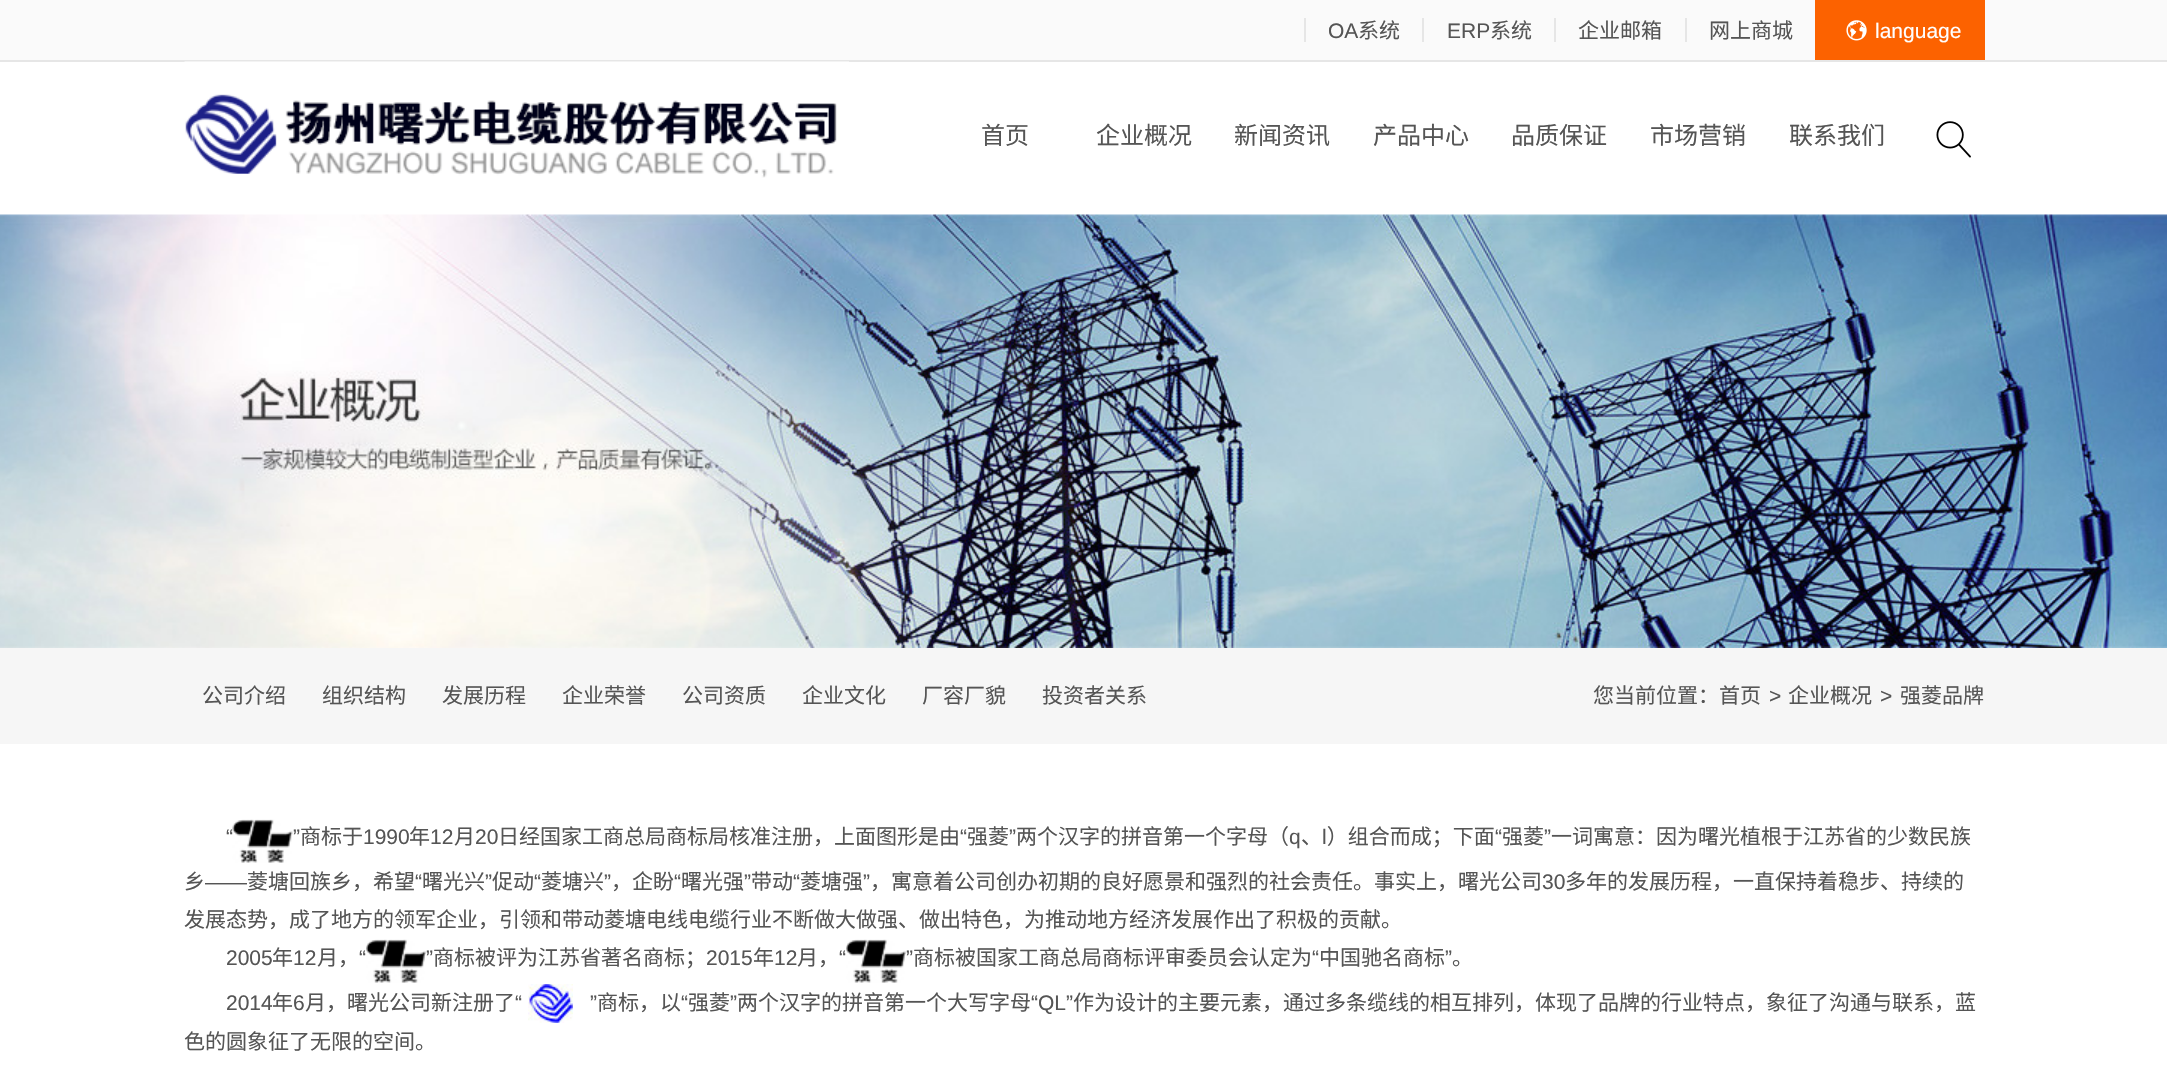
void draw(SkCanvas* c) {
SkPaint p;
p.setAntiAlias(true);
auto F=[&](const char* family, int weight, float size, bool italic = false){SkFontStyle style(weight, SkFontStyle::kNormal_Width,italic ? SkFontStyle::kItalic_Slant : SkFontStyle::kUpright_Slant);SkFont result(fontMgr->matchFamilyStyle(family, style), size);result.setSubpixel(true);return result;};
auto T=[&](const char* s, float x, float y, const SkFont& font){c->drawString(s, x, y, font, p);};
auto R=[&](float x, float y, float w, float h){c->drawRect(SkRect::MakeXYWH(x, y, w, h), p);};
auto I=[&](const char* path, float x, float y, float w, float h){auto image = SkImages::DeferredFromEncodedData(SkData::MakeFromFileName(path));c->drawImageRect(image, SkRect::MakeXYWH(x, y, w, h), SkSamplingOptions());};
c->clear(0xffffffff);
p.setColor(0xfffafafa);
R(0,0,2167,60);
p.setColor(0xffe6e6e6);
R(0,60,2167,2);
auto f1 = F("Liberation Sans",400,21);
p.setColor(0xff555555);
T("OA",1328,38,f1);
p.setColor(0xffe6e6e6);
R(1304,18,2,24);
auto f2 = F("Noto Sans CJK SC",400,21);
p.setColor(0xff555555);
T("系统",1358,38,f2);
T("ERP",1447,38,f1);
p.setColor(0xffe6e6e6);
R(1422,18,2,24);
p.setColor(0xff555555);
T("系统",1490,38,f2);
T("企业邮箱",1578,38,f2);
p.setColor(0xffe6e6e6);
R(1554,18,2,24);
p.setColor(0xff555555);
T("网上商城",1709,38,f2);
p.setColor(0xffe6e6e6);
R(1685,18,2,24);
p.setColor(0xfffc6200);
R(1815,0,170,60);
I("1.png",1846,20,21,21);
p.setColor(0xffffffff);
T("language",1875,38,f1);
I("2.png",184,61,665,117);
auto f3 = F("Noto Sans CJK SC",400,24);
p.setColor(0xff555555);
T("首页",981,144,f3);
T("企业概况",1096,144,f3);
T("新闻资讯",1234,144,f3);
T("产品中心",1373,144,f3);
T("品质保证",1511,144,f3);
T("市场营销",1650,144,f3);
T("联系我们",1789,144,f3);
I("3.png",1936,121,35,37);
I("4.png",0,214,2167,434);
p.setColor(0xfff6f6f6);
R(0,648,2167,96);
p.setColor(0xff555555);
T("公司介绍",202,703,f2);
T("组织结构",322,703,f2);
T("发展历程",442,703,f2);
T("企业荣誉",562,703,f2);
T("公司资质",682,703,f2);
T("企业文化",802,703,f2);
T("厂容厂貌",922,703,f2);
T("投资者关系",1042,703,f2);
T("您当前位置：首页",1593,703,f2);
T(">",1769,703,f1);
T("企业概况",1788,703,f2);
T(">",1880,703,f1);
T("强菱品牌",1900,703,f2);
I("5.png",232,819,61,44);
T("商标于",300,844,f2);
T("年",409,844,f2);
T("月",454,844,f2);
T("日经国家工商总局商标局核准注册，上面图形是由",498,844,f2);
T("强菱",967,844,f2);
T("两个汉字的拼音第一个字母（",1016,844,f2);
T("、 ）组合而成；下面",1301,844,f2);
T("强菱",1502,844,f2);
T("一词寓意：因为曙光植根于江苏省的少数民族",1551,844,f2);
T("“",226,844,f1);
T("”",293,844,f1);
T("1990",363,844,f1);
T("12",430,844,f1);
T("20",475,844,f1);
T("“",960,844,f1);
T("”",1009,844,f1);
T("q",1289,844,f1);
T("l",1322,844,f1);
T("“",1495,844,f1);
T("”",1544,844,f1);
T("乡",184,889,f2);
T("——",205,889,f1);
T("菱塘回族乡，希望",247,889,f2);
T("“",415,889,f1);
T("曙光兴",422,889,f2);
T("”",485,889,f1);
T("促动",492,889,f2);
T("“",534,889,f1);
T("菱塘兴",541,889,f2);
T("”",604,889,f1);
T("，企盼",611,889,f2);
T("“",674,889,f1);
T("曙光强",681,889,f2);
T("”",744,889,f1);
T("带动",751,889,f2);
T("“",793,889,f1);
T("菱塘强",800,889,f2);
T("”",863,889,f1);
T("，寓意着公司创办初期的良好愿景和强烈的社会责任。事实上，曙光公司",870,889,f2);
T("30",1542,889,f1);
T("多年的发展历程，一直保持着稳步、持续的",1565,889,f2);
T("发展态势，成了地方的领军企业，引领和带动菱塘电线电缆行业不断做大做强、做出特色，为推动地方经济发展作出了积极的贡献。",184,927,f2);
T("2005",226,965,f1);
T("年",272,965,f2);
T("12",293,965,f1);
T("月，",317,965,f2);
T("“",359,965,f1);
I("6.png",366,939,60,44);
T("”",426,965,f1);
T("商标被评为江苏省著名商标；",433,965,f2);
T("2015",706,965,f1);
T("年",753,965,f2);
T("12",774,965,f1);
T("月，",797,965,f2);
T("“",839,965,f1);
I("7.png",846,939,60,44);
T("”",906,965,f1);
T("商标被国家工商总局商标评审委员会认定为",913,965,f2);
T("“",1312,965,f1);
T("中国驰名商标",1319,965,f2);
T("”",1445,965,f1);
T("。",1452,965,f2);
T("2014",226,1010,f1);
T("年",272,1010,f2);
T("6",293,1010,f1);
T("月，曙光公司新注册了",305,1010,f2);
T("“",515,1010,f1);
I("8.png",528,984,45,39);
T("”",590,1010,f1);
T("商标，以",597,1010,f2);
T("“",681,1010,f1);
T("强菱",688,1010,f2);
T("”",730,1010,f1);
T("两个汉字的拼音第一个大写字母",737,1010,f2);
T("“QL”",1031,1010,f1);
T("作为设计的主要元素，通过多条缆线的相互排列，体现了品牌的行业特点，象征了沟通与联系，蓝",1073,1010,f2);
T("色的圆象征了无限的空间。",184,1049,f2);
}
